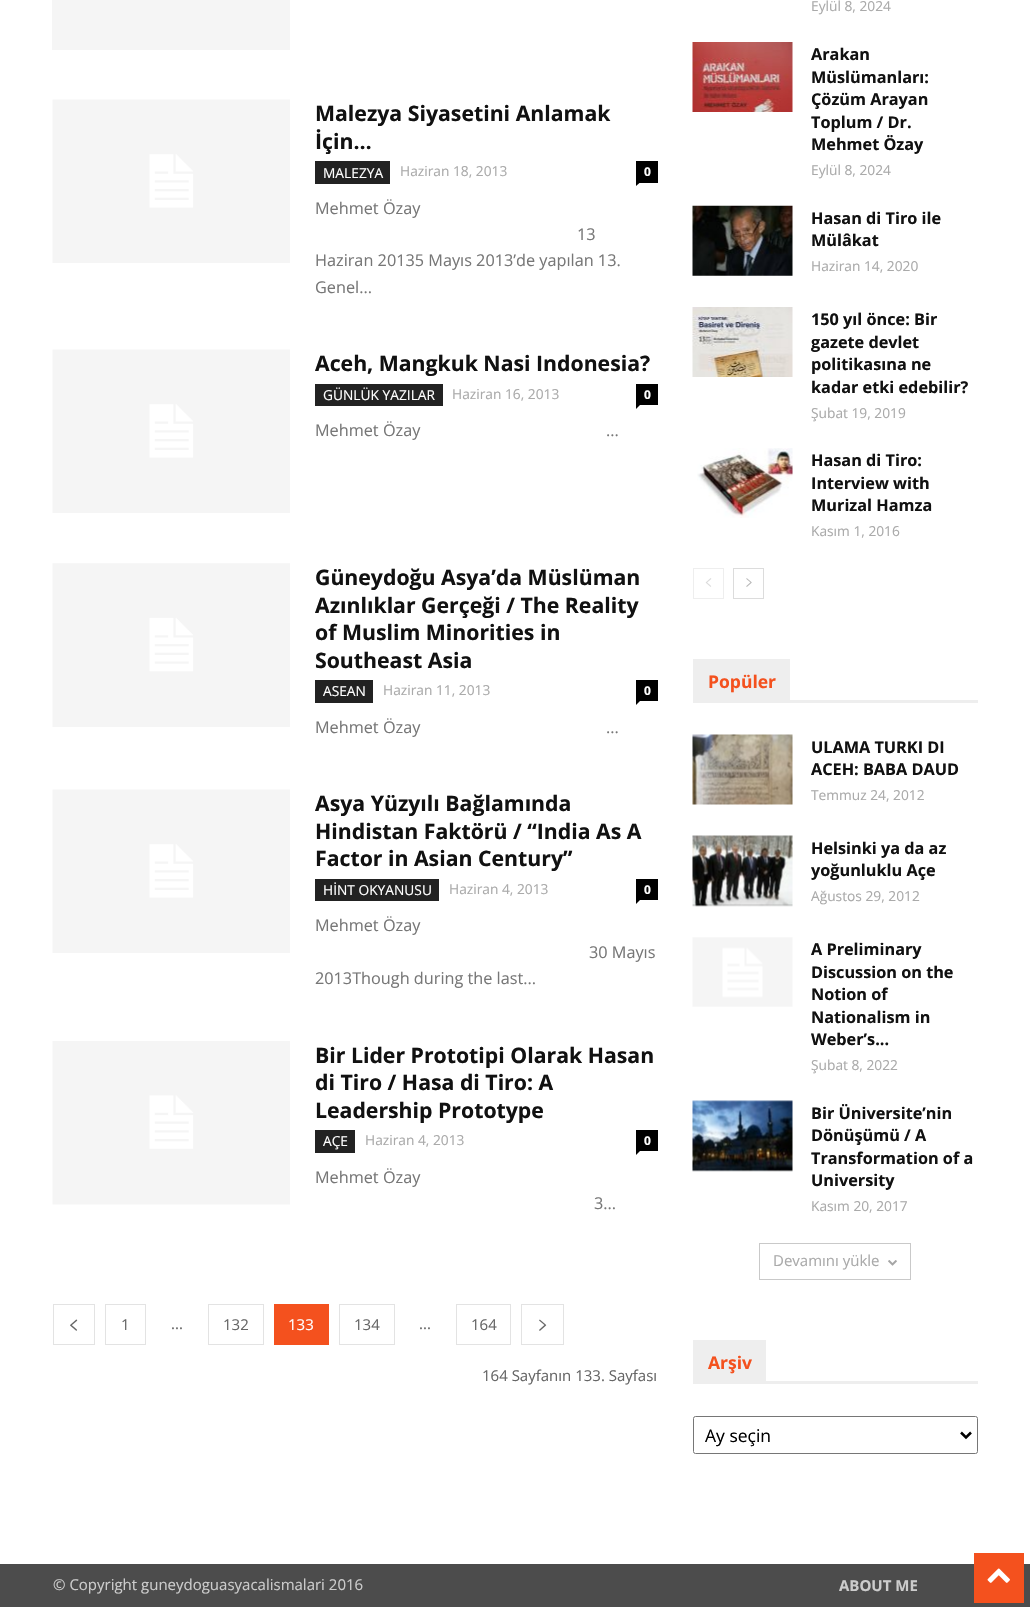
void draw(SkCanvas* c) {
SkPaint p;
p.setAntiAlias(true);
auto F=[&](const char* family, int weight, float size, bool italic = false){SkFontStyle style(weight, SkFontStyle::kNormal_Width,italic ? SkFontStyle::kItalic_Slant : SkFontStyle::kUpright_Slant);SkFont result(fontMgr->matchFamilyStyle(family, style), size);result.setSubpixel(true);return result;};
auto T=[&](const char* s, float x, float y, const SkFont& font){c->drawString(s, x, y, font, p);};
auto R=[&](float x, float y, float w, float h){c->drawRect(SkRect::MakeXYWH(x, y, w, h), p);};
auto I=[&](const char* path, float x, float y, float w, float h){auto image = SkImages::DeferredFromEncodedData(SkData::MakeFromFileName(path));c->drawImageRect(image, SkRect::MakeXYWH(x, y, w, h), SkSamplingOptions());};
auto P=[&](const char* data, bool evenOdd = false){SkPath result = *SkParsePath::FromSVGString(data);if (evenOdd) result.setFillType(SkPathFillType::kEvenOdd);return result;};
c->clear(0xffffffff);
p.setColor(0xfff5f5f5);
R(52,0,238,50);
I("1.png",52,99,238,164);
auto f1 = F("Open Sans",700,21.25);
p.setColor(0xff111111);
T("Malezya Siyasetini Anlamak",315,121,f1);
T("İçin…",315,149,f1);
p.setColor(0xff222222);
R(315,161,75,23);
auto f2 = F("Open Sans",400,13.75);
p.setColor(0xffffffff);
T("MALEZYA",323,178,f2);
p.setColor(0xffaaaaaa);
T("Haziran 18, 2013",400,176,f2);
p.setColor(0xff000000);
R(636,161,22,22);
auto f3 = F("Open Sans",700,12);
p.setColor(0xffffffff);
T("0",644,176,f3);
p.setColor(0xff000000);
c->drawPath(P("M636 182.5h4l-4 3.5z"),p);
auto f4 = F("Open Sans",400,16.25);
p.setColor(0xff777777);
T("Mehmet Özay",315,214,f4);
T("13",577,240,f4);
T("Haziran 20135 Mayıs 2013’de yapılan 13.",315,266,f4);
T("Genel...",315,293,f4);
I("1.png",52,349,238,164);
p.setColor(0xff111111);
T("Aceh, Mangkuk Nasi Indonesia?",315,371,f1);
p.setColor(0xff222222);
R(315,384,128,22);
p.setColor(0xffffffff);
T("GÜNLÜK YAZILAR",323,400,f2);
p.setColor(0xffaaaaaa);
T("Haziran 16, 2013",452,399,f2);
p.setColor(0xff000000);
R(636,384,22,21);
p.setColor(0xffffffff);
T("0",644,399,f3);
p.setColor(0xff000000);
c->drawPath(P("M636 405h4l-4 4z"),p);
p.setColor(0xff777777);
T("Mehmet Özay                                            ...",315,436,f4);
I("2.png",52,563,238,164);
p.setColor(0xff111111);
T("Güneydoğu Asya’da Müslüman",315,585,f1);
T("Azınlıklar Gerçeği / The Reality",315,613,f1);
T("of Muslim Minorities in",315,640,f1);
T("Southeast Asia",315,668,f1);
p.setColor(0xff222222);
R(315,680,58,23);
p.setColor(0xffffffff);
T("ASEAN",323,696,f2);
p.setColor(0xffaaaaaa);
T("Haziran 11, 2013",383,695,f2);
p.setColor(0xff000000);
R(636,680,22,21);
p.setColor(0xffffffff);
T("0",644,695,f3);
p.setColor(0xff000000);
c->drawPath(P("M636 701h4l-4 4z"),p);
p.setColor(0xff777777);
T("Mehmet Özay                                            ...",315,733,f4);
I("1.png",52,789,238,164);
p.setColor(0xff111111);
T("Asya Yüzyılı Bağlamında",315,811,f1);
T("Hindistan Faktörü / “India As A",315,839,f1);
T("Factor in Asian Century”",315,866,f1);
p.setColor(0xff222222);
R(315,879,124,22);
p.setColor(0xffffffff);
T("HİNT OKYANUSU",323,895,f2);
p.setColor(0xffaaaaaa);
T("Haziran 4, 2013",449,894,f2);
p.setColor(0xff000000);
R(636,879,22,21);
p.setColor(0xffffffff);
T("0",644,894,f3);
p.setColor(0xff000000);
c->drawPath(P("M636 900h4l-4 4z"),p);
p.setColor(0xff777777);
T("Mehmet Özay",315,931,f4);
T("30 Mayıs",589,958,f4);
T("2013Though during the last...",315,984,f4);
I("3.png",52,1041,238,164);
p.setColor(0xff111111);
T("Bir Lider Prototipi Olarak Hasan",315,1063,f1);
T("di Tiro / Hasa di Tiro: A",315,1090,f1);
T("Leadership Prototype",315,1118,f1);
p.setColor(0xff222222);
R(315,1130,40,23);
p.setColor(0xffffffff);
T("AÇE",323,1146,f2);
p.setColor(0xffaaaaaa);
T("Haziran 4, 2013",365,1145,f2);
p.setColor(0xff000000);
R(636,1130,22,21);
p.setColor(0xffffffff);
T("0",644,1145,f3);
p.setColor(0xff000000);
c->drawPath(P("M636 1151h4l-4 4z"),p);
p.setColor(0xff777777);
T("Mehmet Özay",315,1183,f4);
T("3...",594,1209,f4);
p.setStroke(true);
p.setStrokeWidth(1);
p.setColor(0xffe3e3e3);
c->drawRect(SkRect::MakeXYWH(53.5,1304.5,41,40),p);
I("4.png",70,1319,8,12);
c->drawRect(SkRect::MakeXYWH(105.5,1304.5,40,40),p);
auto f5 = F("Open Sans",400,15);
p.setStroke(false);
p.setColor(0xff666666);
T("1",121,1330,f5);
T("...",171,1329,f5);
p.setStroke(true);
p.setColor(0xffe3e3e3);
c->drawRect(SkRect::MakeXYWH(208.5,1304.5,55,40),p);
p.setStroke(false);
p.setColor(0xff666666);
T("132",223,1330,f5);
p.setColor(0xfff4511e);
R(274,1304,55,41);
p.setColor(0xffffffff);
T("133",288,1330,f5);
p.setStroke(true);
p.setColor(0xffe3e3e3);
c->drawRect(SkRect::MakeXYWH(339.5,1304.5,55,40),p);
p.setStroke(false);
p.setColor(0xff666666);
T("134",354,1330,f5);
T("...",419,1329,f5);
p.setStroke(true);
p.setColor(0xffe3e3e3);
c->drawRect(SkRect::MakeXYWH(456.5,1304.5,54,40),p);
p.setStroke(false);
p.setColor(0xff666666);
T("164",471,1330,f5);
p.setStroke(true);
p.setColor(0xffe3e3e3);
c->drawRect(SkRect::MakeXYWH(521.5,1304.5,42,40),p);
I("5.png",539,1319,8,12);
p.setStroke(false);
p.setColor(0xff666666);
T("164 Sayfanın 133. Sayfası",482,1381,f5);
p.setColor(0xffaaaaaa);
T("Eylül 8, 2024",811,11,f2);
I("6.png",692,42,101,70);
auto f6 = F("Open Sans",700,16.25);
p.setColor(0xff111111);
T("Arakan",811,60,f6);
T("Müslümanları:",811,83,f6);
T("Çözüm Arayan",811,105,f6);
T("Toplum / Dr.",811,128,f6);
T("Mehmet Özay",811,150,f6);
p.setColor(0xffaaaaaa);
T("Eylül 8, 2024",811,175,f2);
I("7.png",692,205,101,71);
p.setColor(0xff111111);
T("Hasan di Tiro ile",811,224,f6);
T("Mülâkat",811,246,f6);
p.setColor(0xffaaaaaa);
T("Haziran 14, 2020",811,271,f2);
I("8.png",692,307,101,70);
p.setColor(0xff111111);
T("150 yıl önce: Bir",811,325,f6);
T("gazete devlet",811,348,f6);
T("politikasına ne",811,370,f6);
T("kadar etki edebilir?",811,393,f6);
p.setColor(0xffaaaaaa);
T("Şubat 19, 2019",811,418,f2);
I("9.png",697,448,96,70);
p.setColor(0xff111111);
T("Hasan di Tiro:",811,466,f6);
T("Interview with",811,489,f6);
T("Murizal Hamza",811,511,f6);
p.setColor(0xffaaaaaa);
T("Kasım 1, 2016",811,536,f2);
p.setStroke(true);
p.setColor(0xffeeeeee);
c->drawRect(SkRect::MakeXYWH(693.5,568.5,30,30),p);
I("10.png",705,578,7,9);
p.setColor(0xffdcdcdc);
c->drawRect(SkRect::MakeXYWH(733.5,568.5,30,30),p);
I("11.png",746,578,6,9);
p.setStroke(false);
p.setColor(0xffeeeeee);
R(693,700,285,3);
R(693,659,97,41);
auto f7 = F("Open Sans",700,17.5);
p.setColor(0xfff4511e);
T("Popüler",708,688,f7);
I("12.png",692,734,101,71);
p.setColor(0xff111111);
T("ULAMA TURKI DI",811,753,f6);
T("ACEH: BABA DAUD",811,775,f6);
p.setColor(0xffaaaaaa);
T("Temmuz 24, 2012",811,800,f2);
I("13.png",692,835,101,72);
p.setColor(0xff111111);
T("Helsinki ya da az",811,854,f6);
T("yoğunluklu Açe",811,876,f6);
p.setColor(0xffaaaaaa);
T("Ağustos 29, 2012",811,901,f2);
I("14.png",692,937,101,70);
p.setColor(0xff111111);
T("A Preliminary",811,955,f6);
T("Discussion on the",811,978,f6);
T("Notion of",811,1000,f6);
T("Nationalism in",811,1023,f6);
T("Weber’s...",811,1045,f6);
p.setColor(0xffaaaaaa);
T("Şubat 8, 2022",811,1070,f2);
I("15.png",692,1100,101,72);
p.setColor(0xff111111);
T("Bir Üniversite’nin",811,1119,f6);
T("Dönüşümü / A",811,1141,f6);
T("Transformation of a",811,1164,f6);
T("University",811,1186,f6);
p.setColor(0xffaaaaaa);
T("Kasım 20, 2017",811,1211,f2);
p.setStroke(true);
p.setColor(0xffc9c9c9);
c->drawRect(SkRect::MakeXYWH(759.5,1243.5,151,36),p);
p.setStroke(false);
p.setColor(0xffaaaaaa);
T("Devamını yükle",773,1266,f5);
I("16.png",888,1260,9,6);
p.setColor(0xffeeeeee);
R(693,1381,285,3);
R(693,1340,73,41);
p.setColor(0xfff4511e);
T("Arşiv",708,1369,f7);
p.setStroke(true);
p.setColor(0xff767676);
c->drawRoundRect(SkRect::MakeXYWH(693.5,1416.5,284,37),2,2,p);
p.setStrokeWidth(2.5);
p.setColor(0xff000000);
c->drawPath(P("M961 1432.5l5 5l5-5"),p);
auto f8 = F("Open Sans",400,17.5);
p.setStroke(false);
T("Ay seçin",705,1442,f8);
p.setColor(0xff4c4c4c);
R(0,1564,1030,43);
p.setColor(0xffcccccc);
T("© Copyright guneydoguasyacalismalari 2016",53,1590,f5);
auto f9 = F("Open Sans",700,15);
T("ABOUT ME",839,1591,f9);
p.setColor(0xfff4511e);
R(974,1553,50,50);
I("17.png",987,1568,23,15);
}
